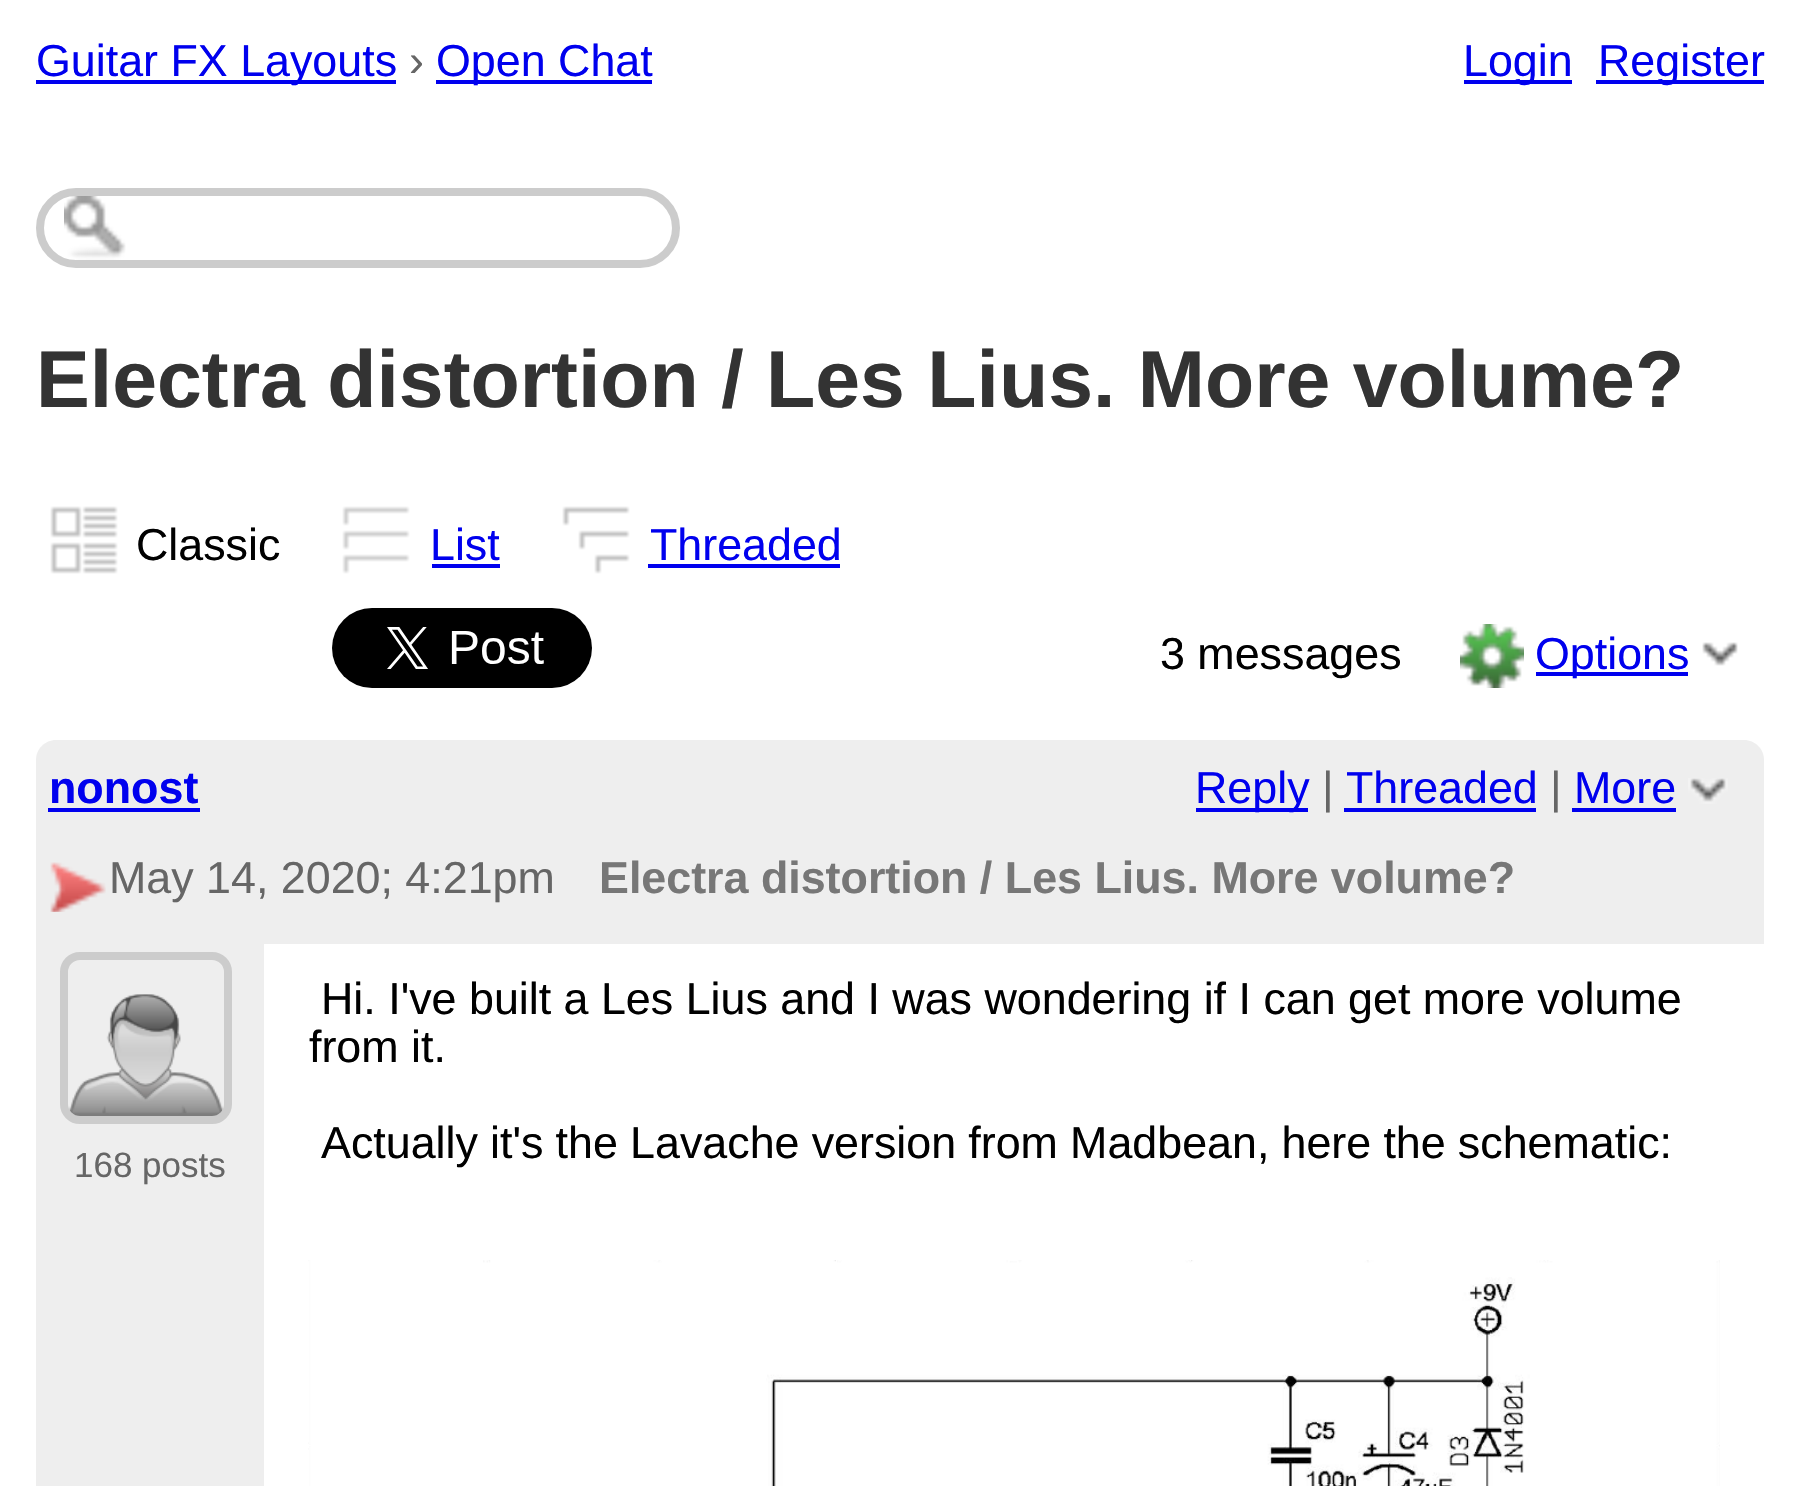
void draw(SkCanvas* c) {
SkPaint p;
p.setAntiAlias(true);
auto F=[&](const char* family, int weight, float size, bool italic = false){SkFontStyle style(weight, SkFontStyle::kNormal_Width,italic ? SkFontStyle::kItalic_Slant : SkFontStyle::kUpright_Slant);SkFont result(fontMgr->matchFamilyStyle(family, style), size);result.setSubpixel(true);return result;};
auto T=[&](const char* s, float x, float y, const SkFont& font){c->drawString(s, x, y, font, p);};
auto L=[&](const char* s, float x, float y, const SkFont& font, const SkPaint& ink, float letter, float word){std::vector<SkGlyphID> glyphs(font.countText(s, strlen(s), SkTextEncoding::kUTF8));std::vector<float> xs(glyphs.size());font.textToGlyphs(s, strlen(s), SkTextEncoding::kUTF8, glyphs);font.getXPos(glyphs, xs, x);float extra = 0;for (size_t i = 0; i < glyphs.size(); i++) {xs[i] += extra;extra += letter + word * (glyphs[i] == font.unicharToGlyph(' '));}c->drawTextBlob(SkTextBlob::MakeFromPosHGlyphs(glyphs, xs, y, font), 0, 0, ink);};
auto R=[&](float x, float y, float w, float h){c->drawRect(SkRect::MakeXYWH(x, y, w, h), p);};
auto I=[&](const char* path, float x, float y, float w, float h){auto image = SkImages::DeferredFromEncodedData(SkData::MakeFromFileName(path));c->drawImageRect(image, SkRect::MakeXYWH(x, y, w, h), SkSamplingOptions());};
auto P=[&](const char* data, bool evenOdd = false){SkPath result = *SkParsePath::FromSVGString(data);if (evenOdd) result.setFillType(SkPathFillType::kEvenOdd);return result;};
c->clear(0xffffffff);
p.setColor(0xff0000ee);
R(36,80,360,4);
auto f1 = F("Liberation Sans",400,44.8);
T("Guitar FX Layouts",36,76,f1);
p.setColor(0xff666666);
T("›",409,76,f1);
p.setColor(0xff0000ee);
R(436,80,216,4);
T("Open Chat",436,76,f1);
R(1464,80,108,4);
T("Login",1463,76,f1);
R(1596,80,168,4);
T("Register",1598,76,f1);
I("1.png",64,196,62,64);
p.setStroke(true);
p.setStrokeWidth(8);
p.setColor(0xffcccccc);
c->drawRoundRect(SkRect::MakeXYWH(40,192,636,72),36,36,p);
auto f2 = F("Liberation Sans",700,80.6);
p.setStroke(false);
p.setColor(0xff333333);
T("Electra distortion / Les Lius. More volume?",36,407,f2);
I("2.png",50,506,68,68);
p.setColor(0xff000000);
T("Classic",136,560,f1);
I("3.png",342,506,68,68);
p.setColor(0xff0000ee);
T("List",430,560,f1);
R(432,564,68,4);
I("4.png",562,506,68,68);
T("Threaded",650,560,f1);
R(648,564,192,4);
I("5.png",332,608,260,80);
p.setColor(0xff000000);
T("3 messages",1160,669,f1);
I("6.png",1460,624,64,64);
p.setColor(0xff0000ee);
R(1536,672,152,4);
T("Options",1535,669,f1);
I("7.png",1702,642,36,24);
p.setColor(0xffeeeeee);
c->drawPath(P("M56 740h1688c11 0 20 9 20 20v184h-1728v-184c0-11 9-20 20-20z"),p);
auto f3 = F("Liberation Sans",700,44.8);
p.setColor(0xff0000ee);
T("nonost",49,803,f3);
R(48,808,152,4);
R(1196,808,112,4);
T("Reply",1195,803,f1);
p.setColor(0xff666666);
T("|",1322,803,f1);
p.setColor(0xff0000ee);
T("Threaded",1346,803,f1);
R(1344,808,192,4);
p.setColor(0xff666666);
T("|",1550,803,f1);
p.setColor(0xff0000ee);
T("More",1574,803,f1);
R(1572,808,104,4);
I("8.png",1688,778,40,26);
I("9.png",50,862,56,50);
p.setColor(0xff666666);
T("May 14, 2020; 4:21pm",109,893,f1);
p.setColor(0xff777777);
T("Electra distortion / Les Lius. More volume?",599,893,f3);
p.setColor(0xffeeeeee);
R(36,944,228,542);
p.setStroke(true);
p.setColor(0xffcccccc);
c->drawRoundRect(SkRect::MakeXYWH(64,956,164,164),16,16,p);
I("10.png",69,994,154,122);
auto f4 = F("Liberation Sans",400,35);
p.setStroke(false);
p.setColor(0xff666666);
T("168 posts",74,1177,f4);
p.setColor(0xff000000);
T("Hi. I've built a Les Lius and I was wondering if I can get more volume",321,1014,f1);
T("from it.",309,1062,f1);
L("Actually it's the Lavache version from Madbean, here the schematic:",321,1158,f1,p,0,-.25);
I("11.png",308,1260,1412,226);
}
